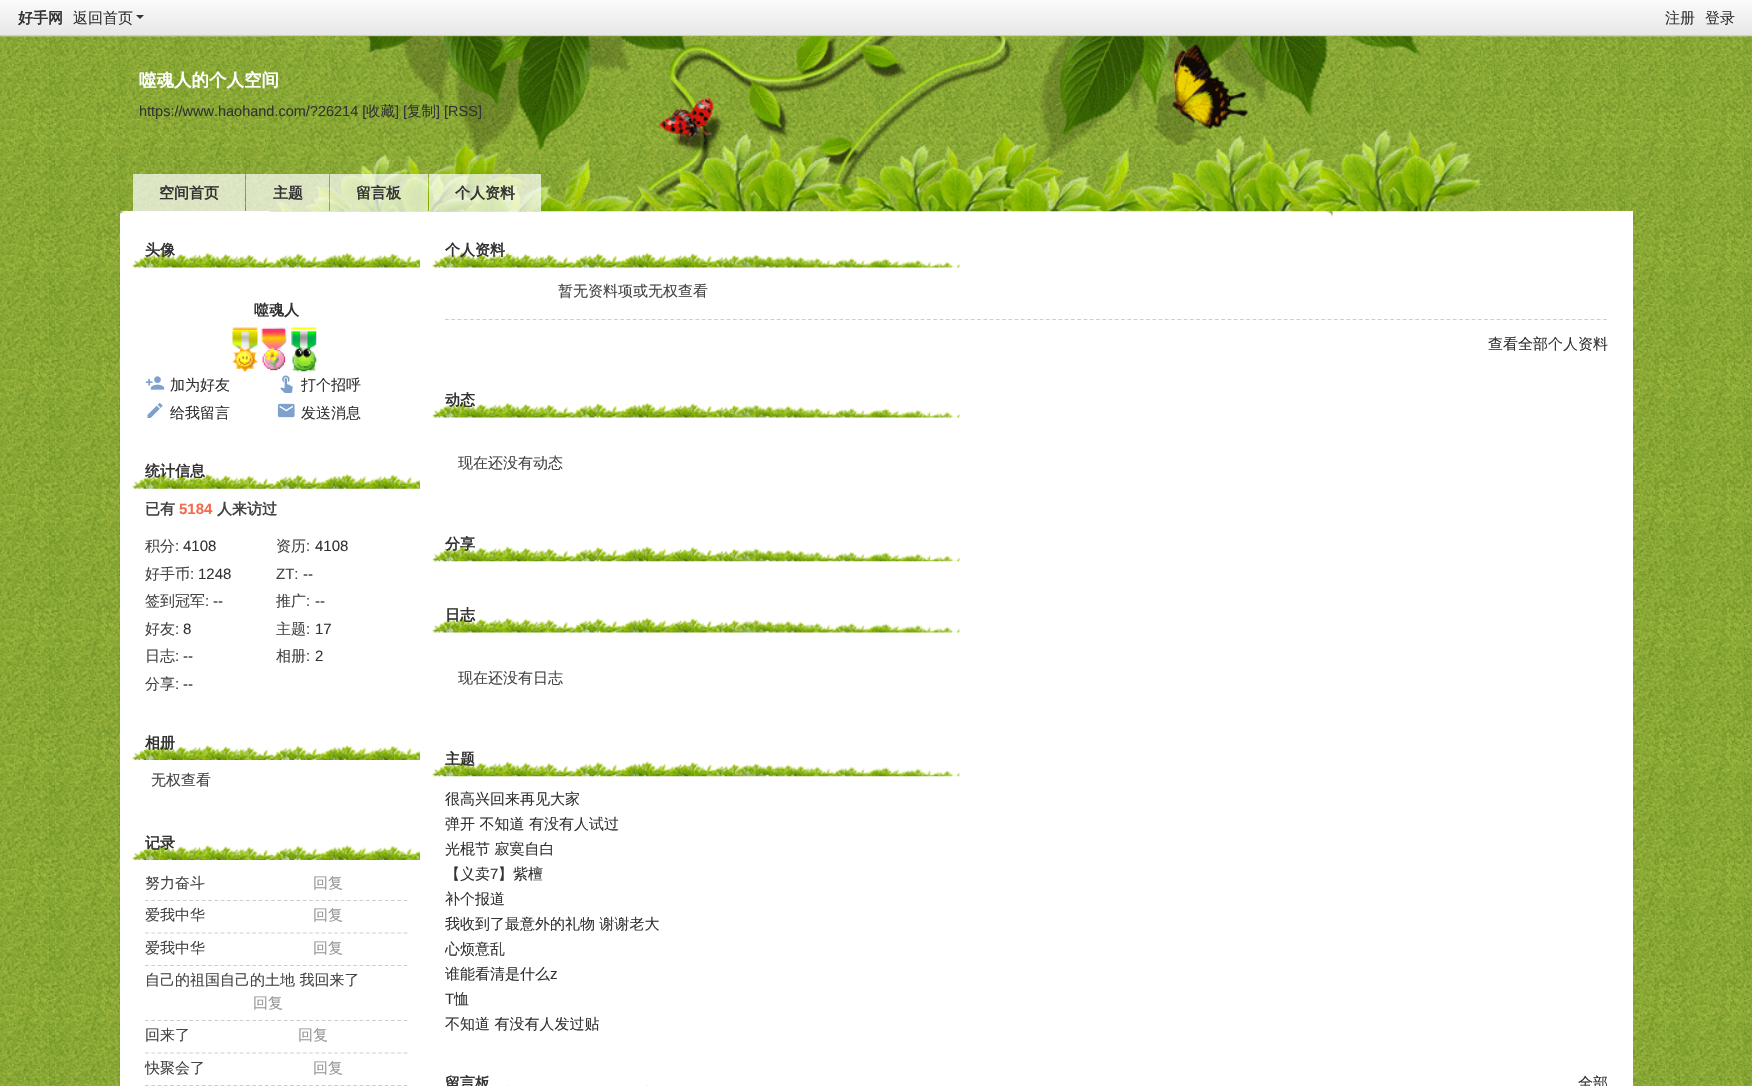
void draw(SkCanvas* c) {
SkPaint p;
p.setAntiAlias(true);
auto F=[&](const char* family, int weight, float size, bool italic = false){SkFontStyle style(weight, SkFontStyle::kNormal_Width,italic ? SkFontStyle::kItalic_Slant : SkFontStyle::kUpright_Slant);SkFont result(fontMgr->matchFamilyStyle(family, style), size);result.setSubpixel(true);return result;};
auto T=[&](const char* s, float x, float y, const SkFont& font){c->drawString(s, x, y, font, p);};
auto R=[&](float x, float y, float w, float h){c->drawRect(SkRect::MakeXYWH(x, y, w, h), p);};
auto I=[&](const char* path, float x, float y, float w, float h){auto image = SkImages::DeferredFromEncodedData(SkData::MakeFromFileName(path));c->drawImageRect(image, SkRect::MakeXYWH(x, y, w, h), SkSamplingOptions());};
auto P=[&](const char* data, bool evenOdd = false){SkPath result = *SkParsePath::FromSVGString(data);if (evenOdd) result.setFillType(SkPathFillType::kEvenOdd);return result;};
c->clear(0xffffffff);
I("1.png",0,36,1752,1050);
I("2.png",0,0,1752,37);
p.setColor(0xffcdcdcd);
R(0,35,1752,1);
auto f1 = F("WenQuanYi Zen Hei",700,15);
p.setColor(0xff333333);
T("好手网",18,23,f1);
auto f2 = F("WenQuanYi Zen Hei",500,15);
T("返回首页",73,23,f2);
c->drawPath(P("M136 15h8l-4 4z"),p);
T("注册",1665,23,f2);
T("登录",1705,23,f2);
p.setColor(0xffffffff);
R(120,211,1513,875);
I("4.png",120,211,1213,7);
I("3.png",270,36,1213,176);
auto f3 = F("WenQuanYi Zen Hei",700,17.5);
T("噬魂人的个人空间",139,86,f3);
auto f4 = F("Liberation Sans",400,14.5);
p.setColor(0xff333333);
T("https://www.haohand.com/?26214 [",139,116,f4);
auto f5 = F("WenQuanYi Zen Hei",500,14.5);
T("收藏",366,116,f5);
T("] [",395,116,f4);
T("复制",407,116,f5);
T("] [RSS]",436,116,f4);
p.setColor(0xb3ffffff);
R(133,174,112,37);
p.setColor(0xff333333);
T("空间首页",159,198,f1);
p.setColor(0xb3ffffff);
R(246,174,83,37);
p.setColor(0xff333333);
T("主题",273,198,f1);
p.setColor(0xb3ffffff);
R(330,174,98,37);
p.setColor(0xff333333);
T("留言板",356,198,f1);
p.setColor(0xb3ffffff);
R(429,174,112,37);
p.setColor(0xff333333);
T("个人资料",455,198,f1);
I("5.png",132,252,288,16);
T("头像",145,255,f1);
T("噬魂人",254,315,f1);
I("6.png",232,327,26,45);
I("7.png",261,327,26,44);
I("8.png",291,327,26,45);
I("9.png",145,376,20,14);
T("加为好友",170,390,f2);
I("10.png",280,375,13,18);
T("打个招呼",301,390,f2);
I("11.png",147,403,16,15);
T("给我留言",170,418,f2);
I("12.png",277,403,18,15);
T("发送消息",301,418,f2);
I("13.png",132,473,288,16);
T("统计信息",145,476,f1);
p.setColor(0xff444444);
T("已有",145,514,f1);
auto f6 = F("Liberation Sans",700,15);
p.setColor(0xfff26c4f);
T("5184",179,514,f6);
p.setColor(0xff444444);
T("人来访过",217,514,f1);
T("积分",145,551,f2);
auto f7 = F("Liberation Sans",400,15);
T(":",175,551,f7);
p.setColor(0xff333333);
T("4108",183,551,f7);
p.setColor(0xff444444);
T("资历",276,551,f2);
T(":",306,551,f7);
p.setColor(0xff333333);
T("4108",315,551,f7);
p.setColor(0xff444444);
T("好手币",145,579,f2);
T(":",190,579,f7);
p.setColor(0xff333333);
T("1248",198,579,f7);
p.setColor(0xff444444);
T("ZT:",276,579,f7);
p.setColor(0xff333333);
T("--",303,579,f7);
p.setColor(0xff444444);
T("签到冠军",145,606,f2);
T(":",205,606,f7);
p.setColor(0xff333333);
T("--",213,606,f7);
p.setColor(0xff444444);
T("推广",276,606,f2);
T(":",306,606,f7);
p.setColor(0xff333333);
T("--",315,606,f7);
p.setColor(0xff444444);
T("好友",145,634,f2);
T(":",175,634,f7);
p.setColor(0xff333333);
T("8",183,634,f7);
p.setColor(0xff444444);
T("主题",276,634,f2);
T(":",306,634,f7);
p.setColor(0xff333333);
T("17",315,634,f7);
p.setColor(0xff444444);
T("日志",145,661,f2);
T(":",175,661,f7);
p.setColor(0xff333333);
T("--",183,661,f7);
p.setColor(0xff444444);
T("相册",276,661,f2);
T(":",306,661,f7);
p.setColor(0xff333333);
T("2",315,661,f7);
p.setColor(0xff444444);
T("分享",145,689,f2);
T(":",175,689,f7);
p.setColor(0xff333333);
T("--",183,689,f7);
I("14.png",132,744,288,16);
T("相册",145,748,f1);
p.setColor(0xff444444);
T("无权查看",151,785,f2);
I("14.png",132,844,288,16);
p.setColor(0xff333333);
T("记录",145,848,f1);
p.setStroke(true);
p.setStrokeWidth(1.2);
p.setColor(0xffcdcdcd);
p.setPathEffect(SkDashPathEffect::Make({{3.75f,2.56f}}, 0));
c->drawPath(P("M145 900.5h262.5"),p);
p.setPathEffect(nullptr);
p.setStroke(false);
p.setColor(0xff444444);
T("努力奋斗",145,888,f2);
p.setColor(0xff999999);
T("回复",313,888,f2);
p.setStroke(true);
p.setColor(0xffcdcdcd);
p.setPathEffect(SkDashPathEffect::Make({{3.75f,2.56f}}, 0));
c->drawPath(P("M145 933h262.5"),p);
p.setPathEffect(nullptr);
p.setStroke(false);
p.setColor(0xff444444);
T("爱我中华",145,920,f2);
p.setColor(0xff999999);
T("回复",313,920,f2);
p.setStroke(true);
p.setColor(0xffcdcdcd);
p.setPathEffect(SkDashPathEffect::Make({{3.75f,2.56f}}, 0));
c->drawPath(P("M145 965.5h262.5"),p);
p.setPathEffect(nullptr);
p.setStroke(false);
p.setColor(0xff444444);
T("爱我中华",145,953,f2);
p.setColor(0xff999999);
T("回复",313,953,f2);
p.setStroke(true);
p.setColor(0xffcdcdcd);
p.setPathEffect(SkDashPathEffect::Make({{3.75f,2.56f}}, 0));
c->drawPath(P("M145 1020.5h262.5"),p);
p.setPathEffect(nullptr);
p.setStroke(false);
p.setColor(0xff444444);
T("自己的祖国自己的土地 我回来了",145,985,f2);
p.setColor(0xff999999);
T("回复",253,1008,f2);
p.setStroke(true);
p.setColor(0xffcdcdcd);
p.setPathEffect(SkDashPathEffect::Make({{3.75f,2.56f}}, 0));
c->drawPath(P("M145 1053h262.5"),p);
p.setPathEffect(nullptr);
p.setStroke(false);
p.setColor(0xff444444);
T("回来了",145,1040,f2);
p.setColor(0xff999999);
T("回复",298,1040,f2);
p.setStroke(true);
p.setColor(0xffcdcdcd);
p.setPathEffect(SkDashPathEffect::Make({{3.75f,2.56f}}, 0));
c->drawPath(P("M145 1085.5h262.5"),p);
p.setPathEffect(nullptr);
p.setStroke(false);
p.setColor(0xff444444);
T("快聚会了",145,1073,f2);
p.setColor(0xff999999);
T("回复",313,1073,f2);
I("15.png",432,252,531,16);
p.setColor(0xff333333);
T("个人资料",445,255,f1);
p.setStroke(true);
p.setColor(0xffcdcdcd);
p.setPathEffect(SkDashPathEffect::Make({{3.75f,2.51f}}, 0));
c->drawPath(P("M445 319.5h1162.5"),p);
p.setPathEffect(nullptr);
p.setStroke(false);
p.setColor(0xff444444);
T("暂无资料项或无权查看",558,296,f2);
p.setColor(0xff333333);
T("查看全部个人资料",1488,349,f2);
I("15.png",432,402,531,16);
T("动态",445,405,f1);
p.setColor(0xff444444);
T("现在还没有动态",458,468,f2);
I("16.png",432,546,531,16);
p.setColor(0xff333333);
T("分享",445,549,f1);
I("15.png",432,617,531,16);
T("日志",445,620,f1);
p.setColor(0xff444444);
T("现在还没有日志",458,683,f2);
I("17.png",432,761,531,16);
p.setColor(0xff333333);
T("主题",445,764,f1);
T("很高兴回来再见大家",445,804,f2);
T("弹开 不知道 有没有人试过",445,829,f2);
T("光棍节 寂寞自白",445,854,f2);
T("【义卖",445,879,f2);
T("7",490,879,f7);
T("】紫檀",498,879,f2);
T("补个报道",445,904,f2);
T("我收到了最意外的礼物 谢谢老大",445,929,f2);
T("心烦意乱",445,954,f2);
T("谁能看清是什么",445,979,f2);
T("z",550,979,f7);
T("T",445,1004,f7);
T("恤",454,1004,f2);
T("不知道 有没有人发过贴",445,1029,f2);
I("18.png",460,1084,188,2);
T("留言板",445,1088,f1);
T("全部",1578,1088,f2);
}
